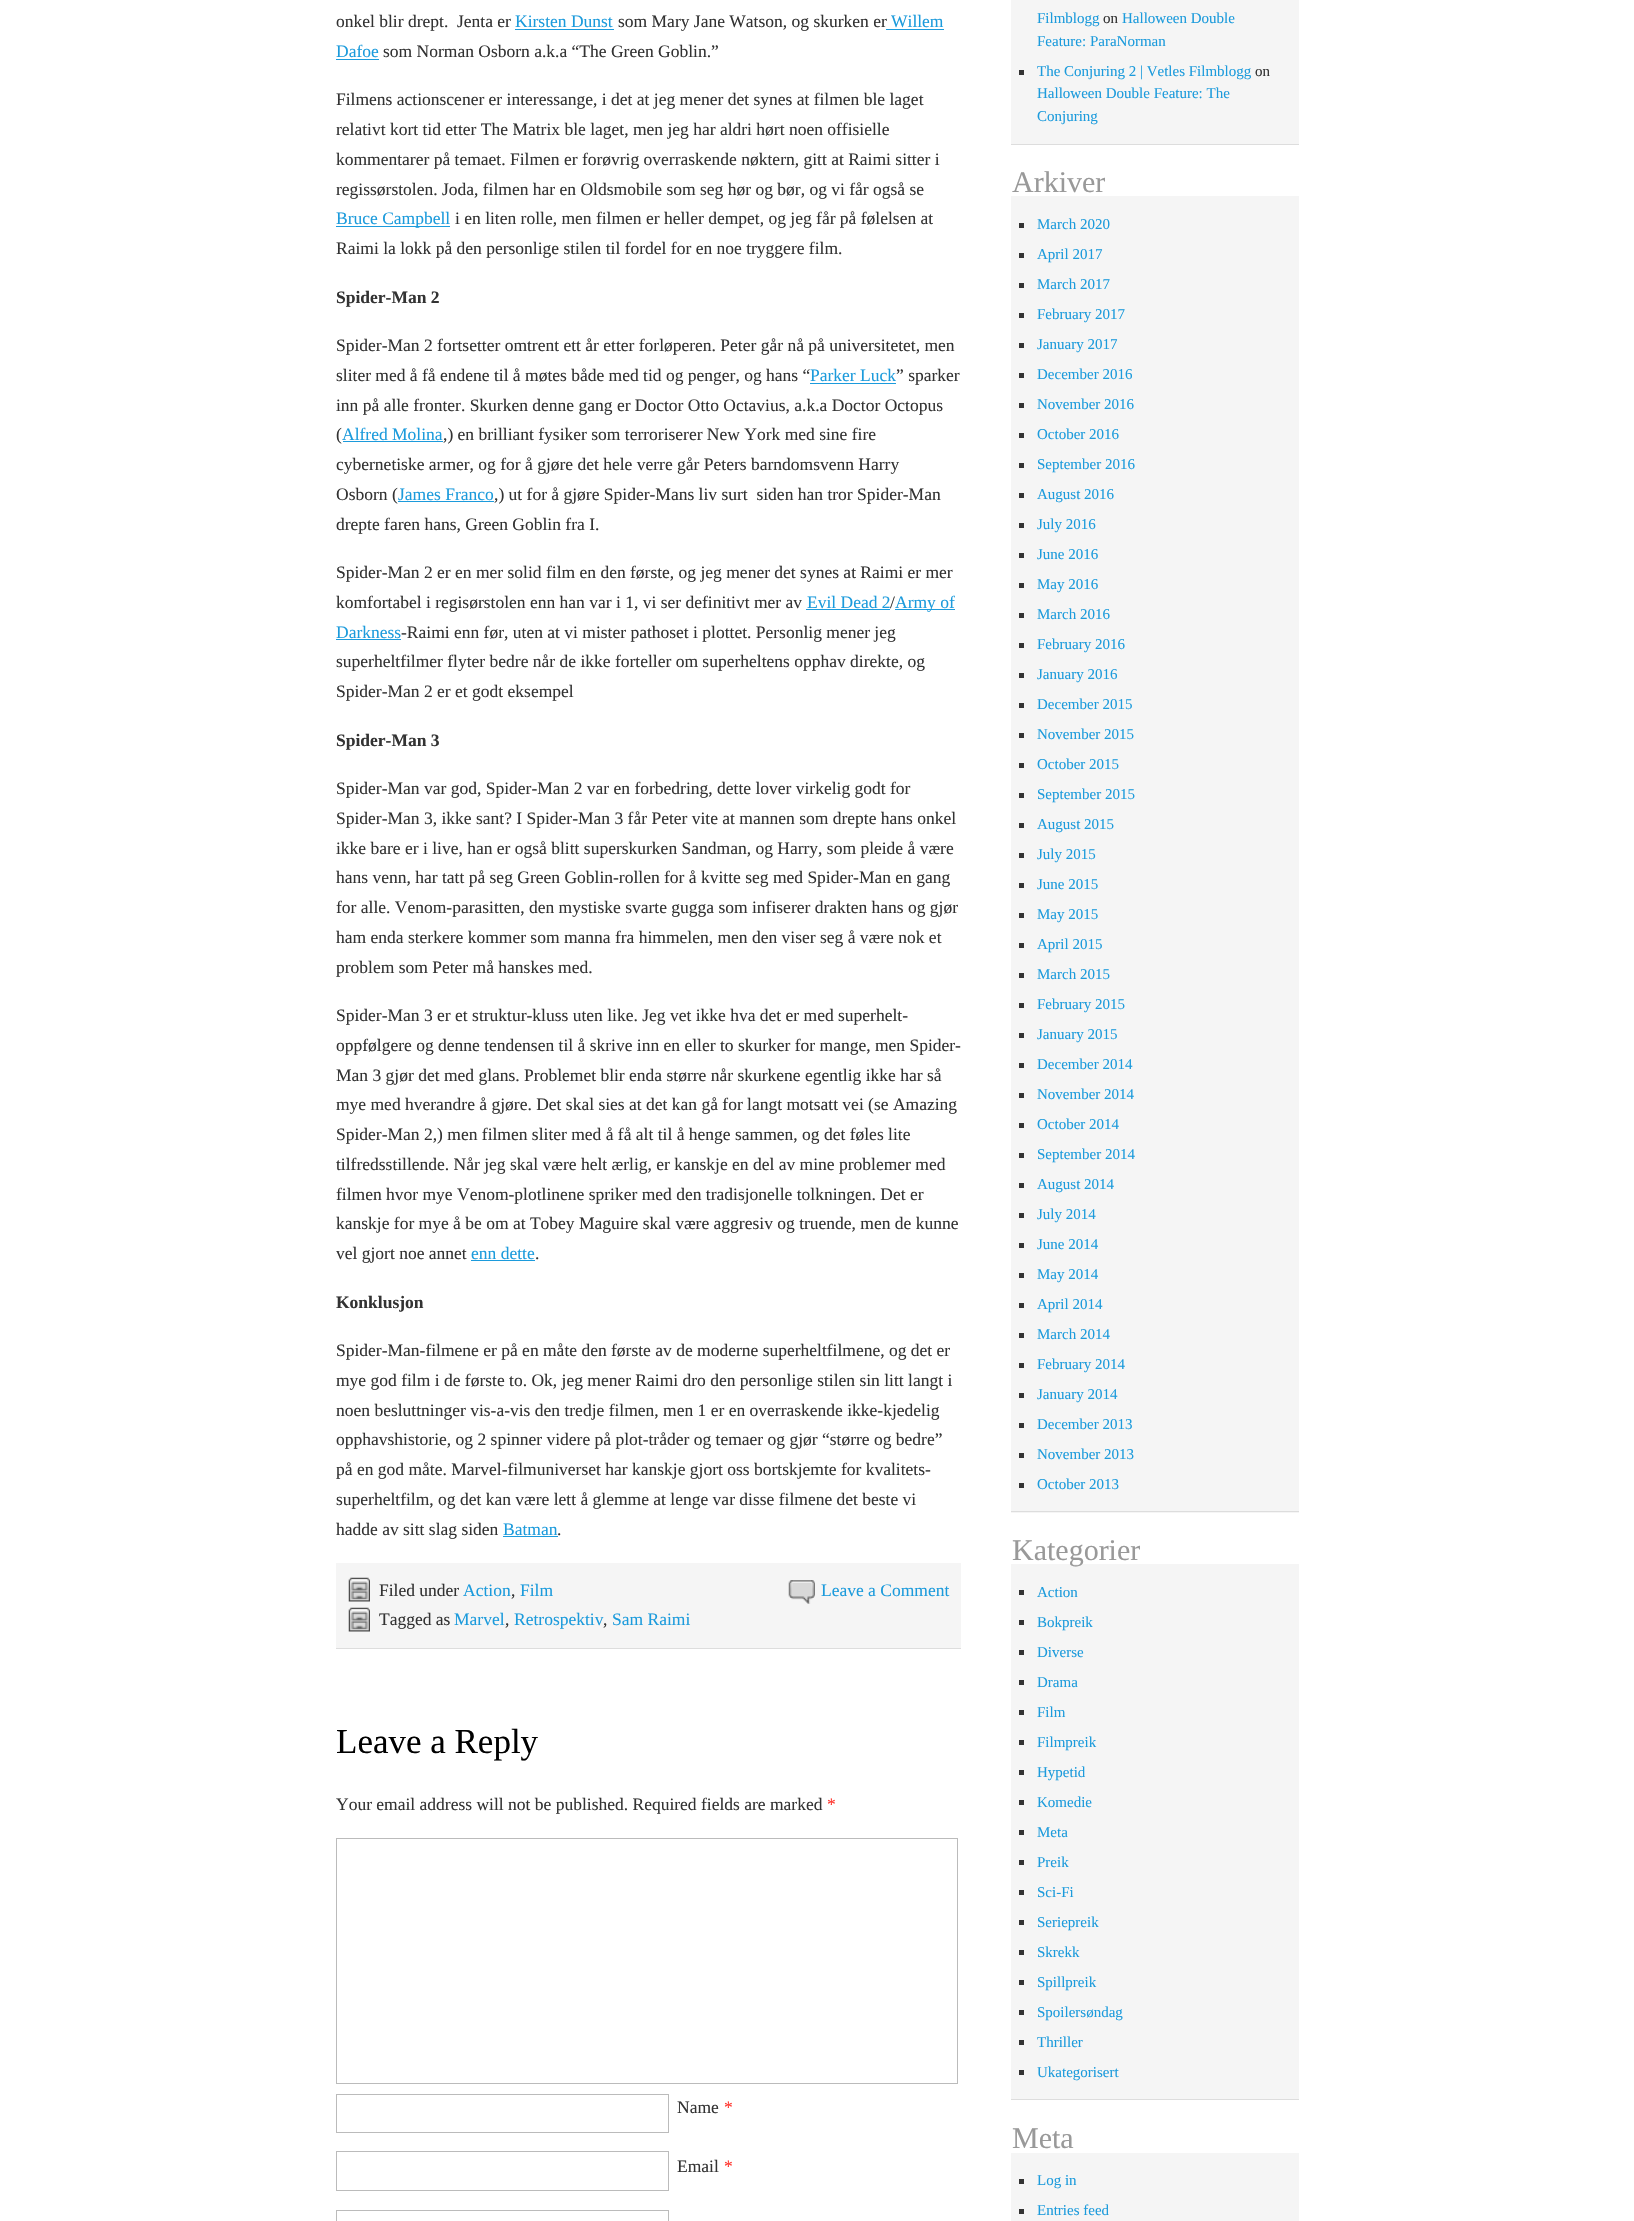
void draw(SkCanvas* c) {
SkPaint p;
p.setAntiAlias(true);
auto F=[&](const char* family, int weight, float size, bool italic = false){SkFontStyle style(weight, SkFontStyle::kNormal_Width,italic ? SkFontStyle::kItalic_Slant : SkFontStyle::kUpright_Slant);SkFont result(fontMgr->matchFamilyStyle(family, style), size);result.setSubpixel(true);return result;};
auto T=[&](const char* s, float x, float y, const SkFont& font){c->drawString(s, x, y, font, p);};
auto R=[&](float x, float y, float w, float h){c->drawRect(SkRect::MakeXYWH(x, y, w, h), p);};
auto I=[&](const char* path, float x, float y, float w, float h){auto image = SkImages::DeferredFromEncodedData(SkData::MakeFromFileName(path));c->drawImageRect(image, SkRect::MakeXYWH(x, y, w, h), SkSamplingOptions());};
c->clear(0xffffffff);
auto f1 = F("Liberation Serif",400,17.5);
p.setColor(0xff333333);
T("onkel blir drept.  Jenta er",336,27,f1);
p.setColor(0xff1c9bdc);
T("Kirsten Dunst",515,27,f1);
R(515,29,99,1);
p.setColor(0xff333333);
T("som Mary Jane Watson, og skurken er",618,27,f1);
p.setColor(0xff1c9bdc);
T("Willem",891,27,f1);
R(886,29,58,1);
T("Dafoe",336,57,f1);
R(336,59,43,1);
p.setColor(0xff333333);
T("som Norman Osborn a.k.a “The Green Goblin.”",383,57,f1);
T("Filmens actionscener er interessange, i det at jeg mener det synes at filmen ble laget",336,105,f1);
T("relativt kort tid etter The Matrix ble laget, men jeg har aldri hørt noen offisielle",336,135,f1);
T("kommentarer på temaet. Filmen er forøvrig overraskende nøktern, gitt at Raimi sitter i",336,165,f1);
T("regissørstolen. Joda, filmen har en Oldsmobile som seg hør og bør, og vi får også se",336,195,f1);
p.setColor(0xff1c9bdc);
R(336,226,114,1);
T("Bruce Campbell",336,224,f1);
p.setColor(0xff333333);
T("i en liten rolle, men filmen er heller dempet, og jeg får på følelsen at",455,224,f1);
T("Raimi la lokk på den personlige stilen til fordel for en noe tryggere film.",336,254,f1);
auto f2 = F("Liberation Serif",700,17.5);
T("Spider-Man 2",336,303,f2);
T("Spider-Man 2 fortsetter omtrent ett år etter forløperen. Peter går nå på universitetet, men",336,351,f1);
T("sliter med å få endene til å møtes både med tid og penger, og hans “",336,381,f1);
p.setColor(0xff1c9bdc);
T("Parker Luck",810,381,f1);
R(810,383,86,1);
p.setColor(0xff333333);
T("” sparker",896,381,f1);
T("inn på alle fronter. Skurken denne gang er Doctor Otto Octavius, a.k.a Doctor Octopus",336,411,f1);
T("(",336,440,f1);
p.setColor(0xff1c9bdc);
T("Alfred Molina",342,440,f1);
R(343,441,100,1);
p.setColor(0xff333333);
T(",) en brilliant fysiker som terroriserer New York med sine fire",443,440,f1);
T("cybernetiske armer, og for å gjøre det hele verre går Peters barndomsvenn Harry",336,470,f1);
T("Osborn (",336,500,f1);
p.setColor(0xff1c9bdc);
T("James Franco",398,500,f1);
R(398,501,96,1);
p.setColor(0xff333333);
T(",) ut for å gjøre Spider-Mans liv surt  siden han tror Spider-Man",494,500,f1);
T("drepte faren hans, Green Goblin fra I.",336,530,f1);
T("Spider-Man 2 er en mer solid film en den første, og jeg mener det synes at Raimi er mer",336,578,f1);
T("komfortabel i regisørstolen enn han var i 1, vi ser definitivt mer av",336,608,f1);
p.setColor(0xff1c9bdc);
T("Evil Dead 2",807,608,f1);
R(806,609,84,1);
p.setColor(0xff333333);
T("/",890,608,f1);
p.setColor(0xff1c9bdc);
R(895,609,60,1);
T("Army of",895,608,f1);
T("Darkness",336,638,f1);
R(336,639,65,1);
p.setColor(0xff333333);
T("-Raimi enn før, uten at vi mister pathoset i plottet. Personlig mener jeg",401,638,f1);
T("superheltfilmer flyter bedre når de ikke forteller om superheltens opphav direkte, og",336,667,f1);
T("Spider-Man 2 er et godt eksempel",336,697,f1);
T("Spider-Man 3",336,746,f2);
T("Spider-Man var god, Spider-Man 2 var en forbedring, dette lover virkelig godt for",336,794,f1);
T("Spider-Man 3, ikke sant? I Spider-Man 3 får Peter vite at mannen som drepte hans onkel",336,824,f1);
T("ikke bare er i live, han er også blitt superskurken Sandman, og Harry, som pleide å være",336,854,f1);
T("hans venn, har tatt på seg Green Goblin-rollen for å kvitte seg med Spider-Man en gang",336,883,f1);
T("for alle. Venom-parasitten, den mystiske svarte gugga som infiserer drakten hans og gjør",336,913,f1);
T("ham enda sterkere kommer som manna fra himmelen, men den viser seg å være nok et",336,943,f1);
T("problem som Peter må hanskes med.",336,973,f1);
T("Spider-Man 3 er et struktur-kluss uten like. Jeg vet ikke hva det er med superhelt-",336,1021,f1);
T("oppfølgere og denne tendensen til å skrive inn en eller to skurker for mange, men Spider-",336,1051,f1);
T("Man 3 gjør det med glans. Problemet blir enda større når skurkene egentlig ikke har så",336,1081,f1);
T("mye med hverandre å gjøre. Det skal sies at det kan gå for langt motsatt vei (se Amazing",336,1110,f1);
T("Spider-Man 2,) men filmen sliter med å få alt til å henge sammen, og det føles lite",336,1140,f1);
T("tilfredsstillende. Når jeg skal være helt ærlig, er kanskje en del av mine problemer med",336,1170,f1);
T("filmen hvor mye Venom-plotlinene spriker med den tradisjonelle tolkningen. Det er",336,1200,f1);
T("kanskje for mye å be om at Tobey Maguire skal være aggresiv og truende, men de kunne",336,1229,f1);
T("vel gjort noe annet",336,1259,f1);
p.setColor(0xff1c9bdc);
T("enn dette",471,1259,f1);
R(471,1260,64,1);
p.setColor(0xff333333);
T(".",535,1259,f1);
T("Konklusjon",336,1308,f2);
T("Spider-Man-filmene er på en måte den første av de moderne superheltfilmene, og det er",336,1356,f1);
T("mye god film i de første to. Ok, jeg mener Raimi dro den personlige stilen sin litt langt i",336,1386,f1);
T("noen besluttninger vis-a-vis den tredje filmen, men 1 er en overraskende ikke-kjedelig",336,1416,f1);
T("opphavshistorie, og 2 spinner videre på plot-tråder og temaer og gjør “større og bedre”",336,1445,f1);
T("på en god måte. Marvel-filmuniverset har kanskje gjort oss bortskjemte for kvalitets-",336,1475,f1);
T("superheltfilm, og det kan være lett å glemme at lenge var disse filmene det beste vi",336,1505,f1);
T("hadde av sitt slag siden",336,1535,f1);
p.setColor(0xff1c9bdc);
T("Batman",503,1535,f1);
R(503,1536,55,1);
p.setColor(0xff333333);
T(".",557,1535,f1);
p.setColor(0xfff5f5f5);
R(336,1563,625,85);
p.setColor(0xffdddddd);
R(336,1648,625,1);
I("1.png",348,1577,22,25);
p.setColor(0xff333333);
T("Filed under",379,1596,f1);
p.setColor(0xff1c9bdc);
T("Action",463,1596,f1);
p.setColor(0xff333333);
T(",",511,1596,f1);
p.setColor(0xff1c9bdc);
T("Film",520,1596,f1);
I("2.png",788,1580,27,24);
T("Leave a Comment",821,1596,f1);
I("1.png",348,1607,22,25);
p.setColor(0xff333333);
T("Tagged as",379,1625,f1);
p.setColor(0xff1c9bdc);
T("Marvel",454,1625,f1);
p.setColor(0xff333333);
T(",",505,1625,f1);
p.setColor(0xff1c9bdc);
T("Retrospektiv",514,1625,f1);
p.setColor(0xff333333);
T(",",603,1625,f1);
p.setColor(0xff1c9bdc);
T("Sam Raimi",612,1625,f1);
auto f3 = F("Liberation Serif",400,35);
p.setColor(0xff000000);
T("Leave a Reply",336,1753,f3);
p.setColor(0xff333333);
T("Your email address will not be published. Required fields are marked",336,1810,f1);
p.setColor(0xffff3730);
T("*",827,1810,f1);
p.setStroke(true);
p.setStrokeWidth(1);
p.setColor(0xffbbbbbb);
c->drawRect(SkRect::MakeXYWH(336.5,1838.5,621,245),p);
c->drawRect(SkRect::MakeXYWH(336.5,2094.5,332,38),p);
p.setStroke(false);
p.setColor(0xff333333);
T("Name",677,2113,f1);
p.setColor(0xffff3730);
T("*",724,2113,f1);
p.setStroke(true);
p.setColor(0xffbbbbbb);
c->drawRect(SkRect::MakeXYWH(336.5,2151.5,332,39),p);
p.setStroke(false);
p.setColor(0xff333333);
T("Email",677,2172,f1);
p.setColor(0xffff3730);
T("*",724,2172,f1);
p.setStroke(true);
p.setColor(0xffbbbbbb);
c->drawRect(SkRect::MakeXYWH(336.5,2210.5,332,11),p);
p.setStroke(false);
p.setColor(0xfff5f5f5);
R(1011,0,288,144);
p.setColor(0xffdddddd);
R(1011,144,288,1);
auto f4 = F("Liberation Serif",400,15);
p.setColor(0xff1c9bdc);
T("Filmblogg",1037,23,f4);
p.setColor(0xff333333);
T("on",1103,23,f4);
p.setColor(0xff1c9bdc);
T("Halloween Double",1122,23,f4);
T("Feature: ParaNorman",1037,46,f4);
p.setColor(0xff333333);
R(1019,70,5,5);
p.setColor(0xff1c9bdc);
T("The Conjuring 2 | Vetles Filmblogg",1037,76,f4);
p.setColor(0xff333333);
T("on",1255,76,f4);
p.setColor(0xff1c9bdc);
T("Halloween Double Feature: The",1037,98,f4);
T("Conjuring",1037,121,f4);
auto f5 = F("Liberation Serif",400,30);
p.setColor(0xff999999);
T("Arkiver",1012,192,f5);
p.setColor(0xfff5f5f5);
R(1011,196,288,1317);
p.setColor(0xffdddddd);
R(1011,1511,288,1);
p.setColor(0xff333333);
R(1019,223,5,5);
p.setColor(0xff1c9bdc);
T("March 2020",1037,229,f4);
p.setColor(0xff333333);
R(1019,253,5,5);
p.setColor(0xff1c9bdc);
T("April 2017",1037,259,f4);
p.setColor(0xff333333);
R(1019,283,5,5);
p.setColor(0xff1c9bdc);
T("March 2017",1037,289,f4);
p.setColor(0xff333333);
R(1019,313,5,5);
p.setColor(0xff1c9bdc);
T("February 2017",1037,319,f4);
p.setColor(0xff333333);
R(1019,343,5,5);
p.setColor(0xff1c9bdc);
T("January 2017",1037,349,f4);
p.setColor(0xff333333);
R(1019,373,5,5);
p.setColor(0xff1c9bdc);
T("December 2016",1037,379,f4);
p.setColor(0xff333333);
R(1019,403,5,5);
p.setColor(0xff1c9bdc);
T("November 2016",1037,409,f4);
p.setColor(0xff333333);
R(1019,433,5,5);
p.setColor(0xff1c9bdc);
T("October 2016",1037,439,f4);
p.setColor(0xff333333);
R(1019,463,5,5);
p.setColor(0xff1c9bdc);
T("September 2016",1037,469,f4);
p.setColor(0xff333333);
R(1019,493,5,5);
p.setColor(0xff1c9bdc);
T("August 2016",1037,499,f4);
p.setColor(0xff333333);
R(1019,523,5,5);
p.setColor(0xff1c9bdc);
T("July 2016",1037,529,f4);
p.setColor(0xff333333);
R(1019,553,5,5);
p.setColor(0xff1c9bdc);
T("June 2016",1037,559,f4);
p.setColor(0xff333333);
R(1019,583,5,5);
p.setColor(0xff1c9bdc);
T("May 2016",1037,589,f4);
p.setColor(0xff333333);
R(1019,613,5,5);
p.setColor(0xff1c9bdc);
T("March 2016",1037,619,f4);
p.setColor(0xff333333);
R(1019,643,5,5);
p.setColor(0xff1c9bdc);
T("February 2016",1037,649,f4);
p.setColor(0xff333333);
R(1019,673,5,5);
p.setColor(0xff1c9bdc);
T("January 2016",1037,679,f4);
p.setColor(0xff333333);
R(1019,703,5,5);
p.setColor(0xff1c9bdc);
T("December 2015",1037,709,f4);
p.setColor(0xff333333);
R(1019,733,5,5);
p.setColor(0xff1c9bdc);
T("November 2015",1037,739,f4);
p.setColor(0xff333333);
R(1019,763,5,5);
p.setColor(0xff1c9bdc);
T("October 2015",1037,769,f4);
p.setColor(0xff333333);
R(1019,793,5,5);
p.setColor(0xff1c9bdc);
T("September 2015",1037,799,f4);
p.setColor(0xff333333);
R(1019,823,5,5);
p.setColor(0xff1c9bdc);
T("August 2015",1037,829,f4);
p.setColor(0xff333333);
R(1019,853,5,5);
p.setColor(0xff1c9bdc);
T("July 2015",1037,859,f4);
p.setColor(0xff333333);
R(1019,883,5,5);
p.setColor(0xff1c9bdc);
T("June 2015",1037,889,f4);
p.setColor(0xff333333);
R(1019,913,5,5);
p.setColor(0xff1c9bdc);
T("May 2015",1037,919,f4);
p.setColor(0xff333333);
R(1019,943,5,5);
p.setColor(0xff1c9bdc);
T("April 2015",1037,949,f4);
p.setColor(0xff333333);
R(1019,973,5,5);
p.setColor(0xff1c9bdc);
T("March 2015",1037,979,f4);
p.setColor(0xff333333);
R(1019,1003,5,5);
p.setColor(0xff1c9bdc);
T("February 2015",1037,1009,f4);
p.setColor(0xff333333);
R(1019,1033,5,5);
p.setColor(0xff1c9bdc);
T("January 2015",1037,1039,f4);
p.setColor(0xff333333);
R(1019,1063,5,5);
p.setColor(0xff1c9bdc);
T("December 2014",1037,1069,f4);
p.setColor(0xff333333);
R(1019,1093,5,5);
p.setColor(0xff1c9bdc);
T("November 2014",1037,1099,f4);
p.setColor(0xff333333);
R(1019,1123,5,5);
p.setColor(0xff1c9bdc);
T("October 2014",1037,1129,f4);
p.setColor(0xff333333);
R(1019,1153,5,5);
p.setColor(0xff1c9bdc);
T("September 2014",1037,1159,f4);
p.setColor(0xff333333);
R(1019,1183,5,5);
p.setColor(0xff1c9bdc);
T("August 2014",1037,1189,f4);
p.setColor(0xff333333);
R(1019,1213,5,5);
p.setColor(0xff1c9bdc);
T("July 2014",1037,1219,f4);
p.setColor(0xff333333);
R(1019,1243,5,5);
p.setColor(0xff1c9bdc);
T("June 2014",1037,1249,f4);
p.setColor(0xff333333);
R(1019,1273,5,5);
p.setColor(0xff1c9bdc);
T("May 2014",1037,1279,f4);
p.setColor(0xff333333);
R(1019,1303,5,5);
p.setColor(0xff1c9bdc);
T("April 2014",1037,1309,f4);
p.setColor(0xff333333);
R(1019,1333,5,5);
p.setColor(0xff1c9bdc);
T("March 2014",1037,1339,f4);
p.setColor(0xff333333);
R(1019,1363,5,5);
p.setColor(0xff1c9bdc);
T("February 2014",1037,1369,f4);
p.setColor(0xff333333);
R(1019,1393,5,5);
p.setColor(0xff1c9bdc);
T("January 2014",1037,1399,f4);
p.setColor(0xff333333);
R(1019,1423,5,5);
p.setColor(0xff1c9bdc);
T("December 2013",1037,1429,f4);
p.setColor(0xff333333);
R(1019,1453,5,5);
p.setColor(0xff1c9bdc);
T("November 2013",1037,1459,f4);
p.setColor(0xff333333);
R(1019,1483,5,5);
p.setColor(0xff1c9bdc);
T("October 2013",1037,1489,f4);
p.setColor(0xfff5f5f5);
R(1011,1564,288,535);
p.setColor(0xff999999);
T("Kategorier",1012,1560,f5);
p.setColor(0xffdddddd);
R(1011,2099,288,1);
p.setColor(0xff333333);
R(1019,1590,5,5);
p.setColor(0xff1c9bdc);
T("Action",1037,1597,f4);
p.setColor(0xff333333);
R(1019,1620,5,5);
p.setColor(0xff1c9bdc);
T("Bokpreik",1037,1627,f4);
p.setColor(0xff333333);
R(1019,1650,5,5);
p.setColor(0xff1c9bdc);
T("Diverse",1037,1657,f4);
p.setColor(0xff333333);
R(1019,1680,5,5);
p.setColor(0xff1c9bdc);
T("Drama",1037,1687,f4);
p.setColor(0xff333333);
R(1019,1710,5,5);
p.setColor(0xff1c9bdc);
T("Film",1037,1717,f4);
p.setColor(0xff333333);
R(1019,1740,5,5);
p.setColor(0xff1c9bdc);
T("Filmpreik",1037,1747,f4);
p.setColor(0xff333333);
R(1019,1770,5,5);
p.setColor(0xff1c9bdc);
T("Hypetid",1037,1777,f4);
p.setColor(0xff333333);
R(1019,1800,5,5);
p.setColor(0xff1c9bdc);
T("Komedie",1037,1807,f4);
p.setColor(0xff333333);
R(1019,1830,5,5);
p.setColor(0xff1c9bdc);
T("Meta",1037,1837,f4);
p.setColor(0xff333333);
R(1019,1860,5,5);
p.setColor(0xff1c9bdc);
T("Preik",1037,1867,f4);
p.setColor(0xff333333);
R(1019,1890,5,5);
p.setColor(0xff1c9bdc);
T("Sci-Fi",1037,1897,f4);
p.setColor(0xff333333);
R(1019,1920,5,5);
p.setColor(0xff1c9bdc);
T("Seriepreik",1037,1927,f4);
p.setColor(0xff333333);
R(1019,1950,5,5);
p.setColor(0xff1c9bdc);
T("Skrekk",1037,1957,f4);
p.setColor(0xff333333);
R(1019,1980,5,5);
p.setColor(0xff1c9bdc);
T("Spillpreik",1037,1987,f4);
p.setColor(0xff333333);
R(1019,2010,5,5);
p.setColor(0xff1c9bdc);
T("Spoilersøndag",1037,2017,f4);
p.setColor(0xff333333);
R(1019,2040,5,5);
p.setColor(0xff1c9bdc);
T("Thriller",1037,2047,f4);
p.setColor(0xff333333);
R(1019,2070,5,5);
p.setColor(0xff1c9bdc);
T("Ukategorisert",1037,2077,f4);
p.setColor(0xff999999);
T("Meta",1012,2148,f5);
p.setColor(0xfff5f5f5);
R(1011,2153,288,68);
p.setColor(0xff333333);
R(1019,2179,5,5);
p.setColor(0xff1c9bdc);
T("Log in",1037,2185,f4);
p.setColor(0xff333333);
R(1019,2209,5,5);
p.setColor(0xff1c9bdc);
T("Entries feed",1037,2215,f4);
}
